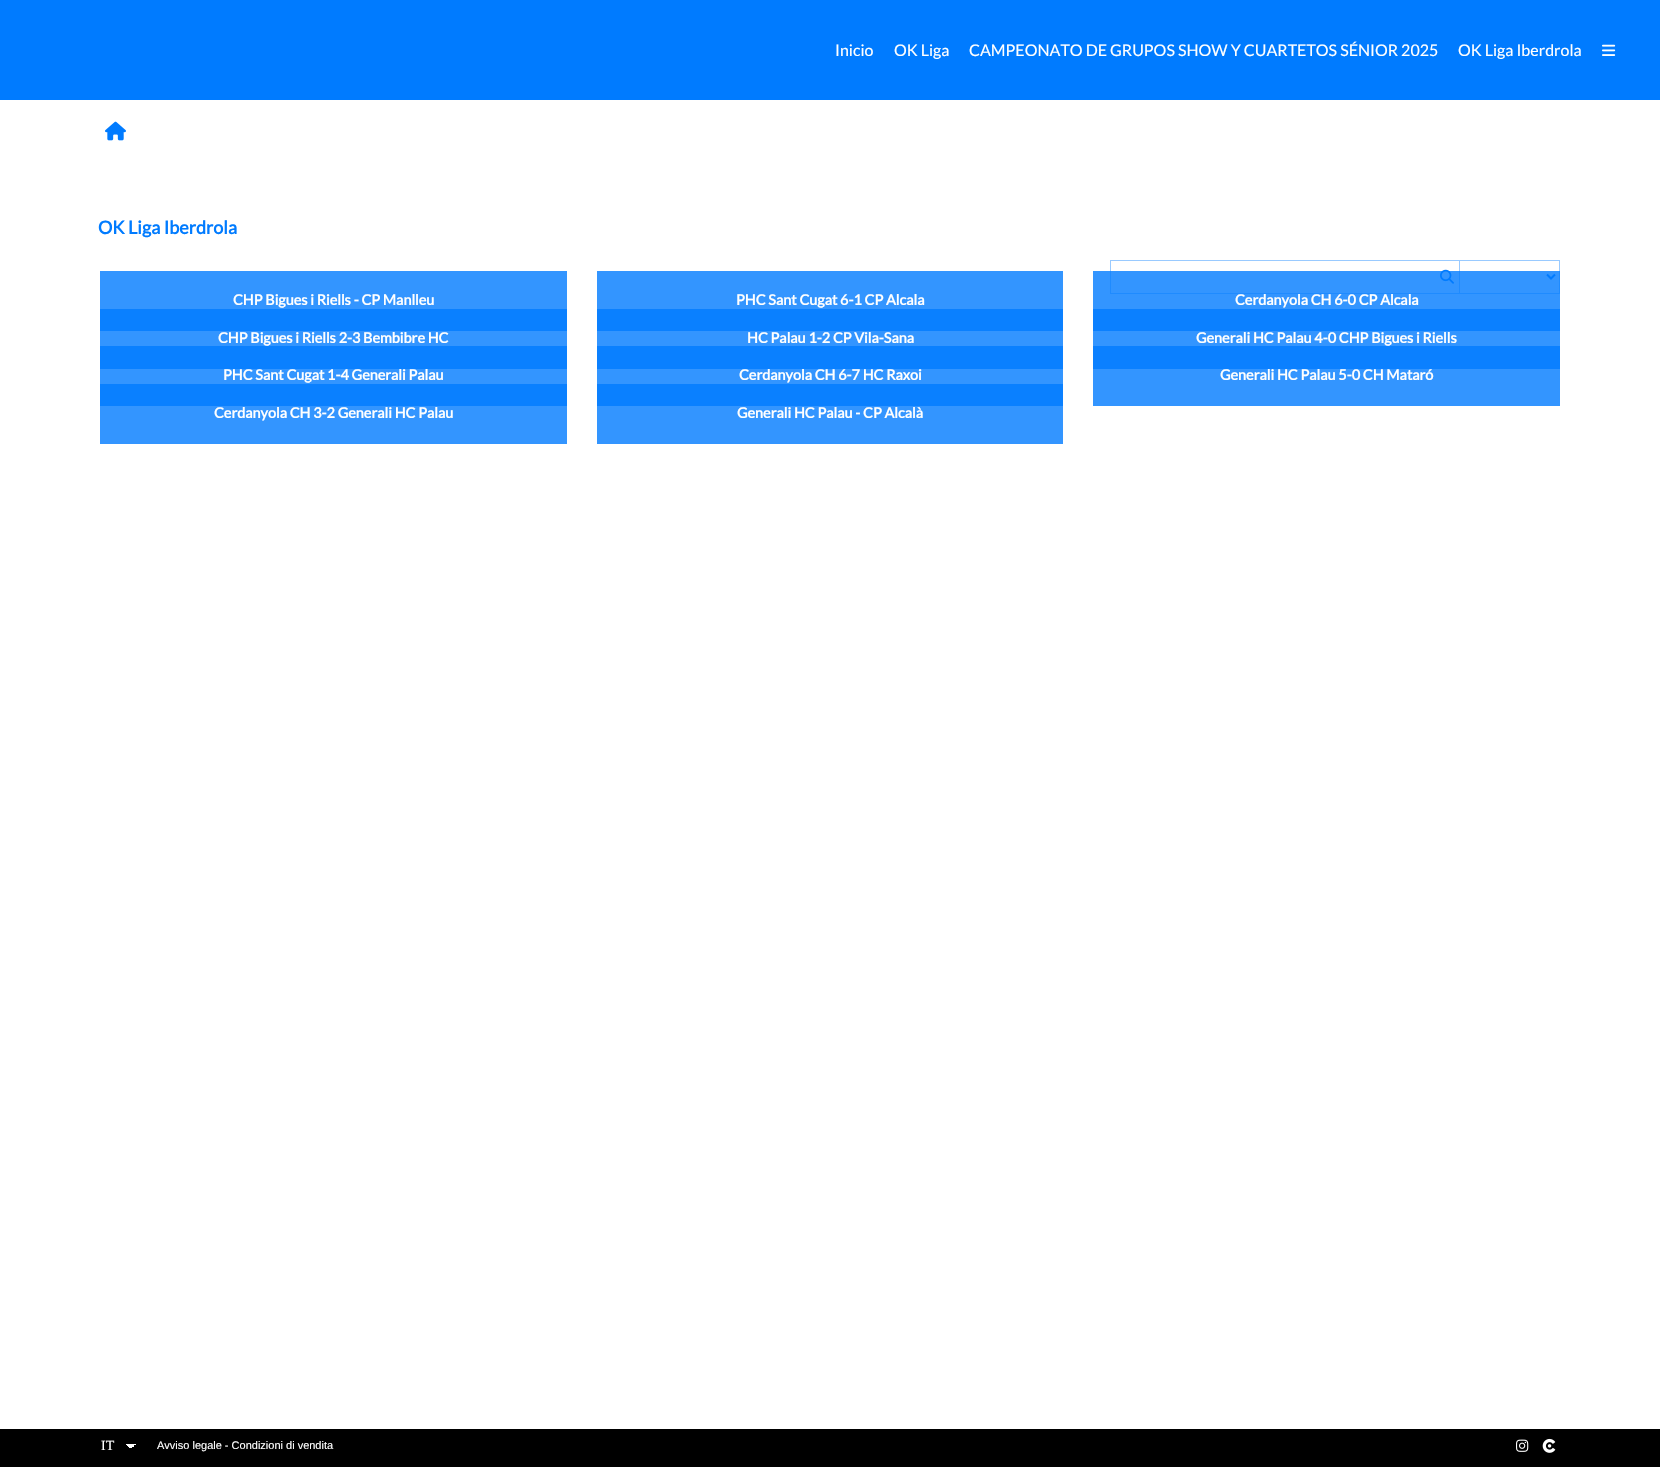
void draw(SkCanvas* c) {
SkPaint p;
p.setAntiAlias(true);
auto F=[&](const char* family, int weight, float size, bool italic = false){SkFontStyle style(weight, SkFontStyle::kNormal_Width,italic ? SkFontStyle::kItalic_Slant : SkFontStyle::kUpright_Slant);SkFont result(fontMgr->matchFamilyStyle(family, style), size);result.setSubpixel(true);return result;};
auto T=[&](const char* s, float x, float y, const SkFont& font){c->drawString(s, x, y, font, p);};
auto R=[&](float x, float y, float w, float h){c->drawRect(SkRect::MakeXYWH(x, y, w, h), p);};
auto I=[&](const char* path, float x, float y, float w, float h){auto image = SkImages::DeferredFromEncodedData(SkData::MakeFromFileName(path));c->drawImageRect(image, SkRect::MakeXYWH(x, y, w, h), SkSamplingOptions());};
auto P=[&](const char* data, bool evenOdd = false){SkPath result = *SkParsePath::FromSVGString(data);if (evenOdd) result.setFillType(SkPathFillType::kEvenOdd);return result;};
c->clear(0xffffffff);
p.setColor(0xff3395ff);
R(597,406,466,38);
R(100,406,467,38);
R(597,369,466,15);
p.setColor(0xff0a80ff);
R(597,384,466,22);
p.setColor(0xff3395ff);
R(100,369,467,15);
p.setColor(0xff0a80ff);
R(100,384,467,22);
p.setColor(0xff3395ff);
R(597,331,466,15);
p.setColor(0xff0a80ff);
R(597,346,466,23);
p.setColor(0xff3395ff);
R(100,331,467,15);
p.setColor(0xff0a80ff);
R(100,346,467,23);
p.setColor(0xff007bff);
R(0,0,1660,100);
auto f1 = F("Lato",400,16);
p.setColor(0xffffffff);
T("Inicio",835,56,f1);
T("OK Liga",894,56,f1);
T("CAMPEONATO DE GRUPOS SHOW Y CUARTETOS SÉNIOR 2025",969,56,f1);
T("OK Liga Iberdrola",1458,56,f1);
I("1.png",1602,44,14,12);
I("2.png",105,121,21,20);
auto f2 = F("Lato",700,18);
p.setColor(0xff007bff);
T("OK Liga Iberdrola",98,234,f2);
p.setStroke(true);
p.setStrokeWidth(1);
p.setColor(0xff99caff);
c->drawRect(SkRect::MakeXYWH(1459.5,260.5,100,33),p);
c->drawRect(SkRect::MakeXYWH(1110.5,260.5,349,33),p);
I("3.png",1440,269,14,15);
p.setStrokeWidth(2);
p.setColor(0xff007bff);
c->drawPath(P("M1547 274.5l4 4l4-4"),p);
p.setStroke(false);
p.setColor(0xff3395ff);
R(100,271,467,38);
p.setColor(0xff0a80ff);
R(100,309,467,22);
auto f3 = F("Lato",700,14.4);
p.setColor(0xffffffff);
T("CHP Bigues i Riells - CP Manlleu",233,305,f3);
p.setColor(0xff3395ff);
R(597,271,466,38);
p.setColor(0xff0a80ff);
R(597,309,466,22);
p.setColor(0xffffffff);
T("PHC Sant Cugat 6-1 CP Alcala",736,305,f3);
p.setColor(0xcc007bff);
R(1093,271,467,60);
p.setColor(0xffffffff);
T("Cerdanyola CH 6-0 CP Alcala",1235,305,f3);
T("CHP Bigues i Riells 2-3 Bembibre HC",218,343,f3);
T("HC Palau 1-2 CP Vila-Sana",747,343,f3);
p.setColor(0xcc007bff);
R(1093,309,467,60);
p.setColor(0xffffffff);
T("Generali HC Palau 4-0 CHP Bigues i Riells",1196,343,f3);
T("PHC Sant Cugat 1-4 Generali Palau",223,380,f3);
T("Cerdanyola CH 6-7 HC Raxoi",739,380,f3);
p.setColor(0xcc007bff);
R(1093,346,467,60);
p.setColor(0xffffffff);
T("Generali HC Palau 5-0 CH Mataró",1220,380,f3);
T("Cerdanyola CH 3-2 Generali HC Palau",214,418,f3);
T("Generali HC Palau - CP Alcalà",737,418,f3);
p.setColor(0xff000000);
R(0,1429,1660,38);
{
const SkColor colors[] = {0xffffffff,0xff000000};
const float stops[] = {.5,.5};
const SkPoint ends[] = {{131,1444}, {136,1449}};
p.setShader(SkGradientShader::MakeLinear(ends, colors, stops, 2, SkTileMode::kClamp));
p.setAlpha(255);
}
R(131,1444,5,4);
{
const SkColor colors[] = {0xff000000,0xffffffff};
const float stops[] = {.5,.5};
const SkPoint ends[] = {{126,1449}, {131,1444}};
p.setShader(SkGradientShader::MakeLinear(ends, colors, stops, 2, SkTileMode::kClamp));
p.setAlpha(255);
}
R(126,1444,5,4);
auto f4 = F("Liberation Serif",400,14);
p.setShader(nullptr);
p.setColor(0xffffffff);
T("IT",101,1450,f4);
auto f5 = F("Liberation Sans",400,11);
T("Avviso legale - Condizioni di vendita",157,1449,f5);
I("4.png",1516,1439,13,13);
I("5.png",1542,1438,14,15);
}
